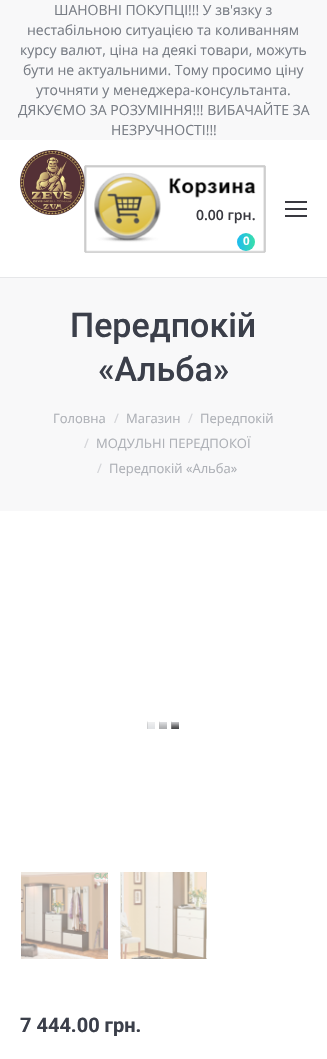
void draw(SkCanvas* c) {
SkPaint p;
p.setAntiAlias(true);
auto F=[&](const char* family, int weight, float size, bool italic = false){SkFontStyle style(weight, SkFontStyle::kNormal_Width,italic ? SkFontStyle::kItalic_Slant : SkFontStyle::kUpright_Slant);SkFont result(fontMgr->matchFamilyStyle(family, style), size);result.setSubpixel(true);return result;};
auto T=[&](const char* s, float x, float y, const SkFont& font){c->drawString(s, x, y, font, p);};
auto R=[&](float x, float y, float w, float h){c->drawRect(SkRect::MakeXYWH(x, y, w, h), p);};
auto I=[&](const char* path, float x, float y, float w, float h){auto image = SkImages::DeferredFromEncodedData(SkData::MakeFromFileName(path));c->drawImageRect(image, SkRect::MakeXYWH(x, y, w, h), SkSamplingOptions());};
auto P=[&](const char* data, bool evenOdd = false){SkPath result = *SkParsePath::FromSVGString(data);if (evenOdd) result.setFillType(SkPathFillType::kEvenOdd);return result;};
c->clear(0xfff8f8f9);
auto f1 = F("Open Sans",400,14);
p.setColor(0xff787d85);
T("ШАНОВНІ ПОКУПЦІ!!! У зв'язку з",54,15,f1);
T("нестабільною ситуацією та коливанням",27,35,f1);
T("курсу валют, ціна на деякі товари, можуть",20,55,f1);
T("бути не актуальними. Тому просимо ціну",23,75,f1);
T("уточняти у менеджера-консультанта.",36,95,f1);
T("ДЯКУЄМО ЗА РОЗУМІННЯ!!! ВИБАЧАЙТЕ ЗА",18,115,f1);
T("НЕЗРУЧНОСТІ!!!",111,135,f1);
p.setColor(0xffffffff);
R(0,140,327,919);
p.setColor(0xffe6e7e9);
R(0,277,327,1);
I("1.png",20,150,65,65);
c->save();
c->clipPath(P("M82 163h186v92h-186zm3 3h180v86h-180z",true),true);
p.setColor(0xff000000);
p.setMaskFilter(SkMaskFilter::MakeBlur(kNormal_SkBlurStyle, .5));
c->drawRect(SkRect::MakeXYWH(85,166,180,86),p);
p.setMaskFilter(nullptr);
c->restore();
I("2.png",85,166,180,86);
auto f2 = F("Open Sans",600,14);
p.setColor(0xff393940);
T("0.00 грн.",196,220,f2);
{
const SkColor colors[] = {0xff1ebbf0,0xff39dfaa};
const float stops[] = {0,1};
const SkPoint ends[] = {{237,242}, {255,242}};
p.setShader(SkGradientShader::MakeLinear(ends, colors, stops, 2, SkTileMode::kClamp));
p.setAlpha(255);
}
c->drawCircle(246,242,9,p);
auto f3 = F("Liberation Sans",700,12);
p.setShader(nullptr);
p.setColor(0xffffffff);
T("0",243,245,f3);
p.setColor(0xff393940);
R(285,208,22,2);
R(285,201,22,2);
R(285,215,22,2);
p.setColor(0xfff8f8f9);
R(0,278,327,233);
auto f4 = F("Roboto",500,34);
p.setColor(0xff3b3f4a);
T("Передпокій",70,337,f4);
T("«Альба»",98,381,f4);
auto f5 = F("Open Sans",400,13);
p.setColor(0xffadb0b6);
T("Головна",53,423,f5);
p.setColor(0xffd3d4d8);
T("/",114,423,f5);
p.setColor(0xffadb0b6);
T("Магазин",126,423,f5);
p.setColor(0xffd3d4d8);
T("/",188,423,f5);
p.setColor(0xffadb0b6);
T("Передпокій",200,423,f5);
p.setColor(0xffd3d4d8);
T("/",84,448,f5);
p.setColor(0xffadb0b6);
T("МОДУЛЬНІ ПЕРЕДПОКОЇ",96,448,f5);
p.setColor(0xffd3d4d8);
T("/",97,473,f5);
p.setColor(0xffadb0b6);
T("Передпокій «Альба»",109,473,f5);
I("3.png",147,721,32,8);
I("4.png",21,872,87,87);
I("5.png",120,872,87,87);
auto f6 = F("Roboto",700,20);
p.setColor(0xff3b3f4a);
T("7 444.00 грн.",20,1032,f6);
}
